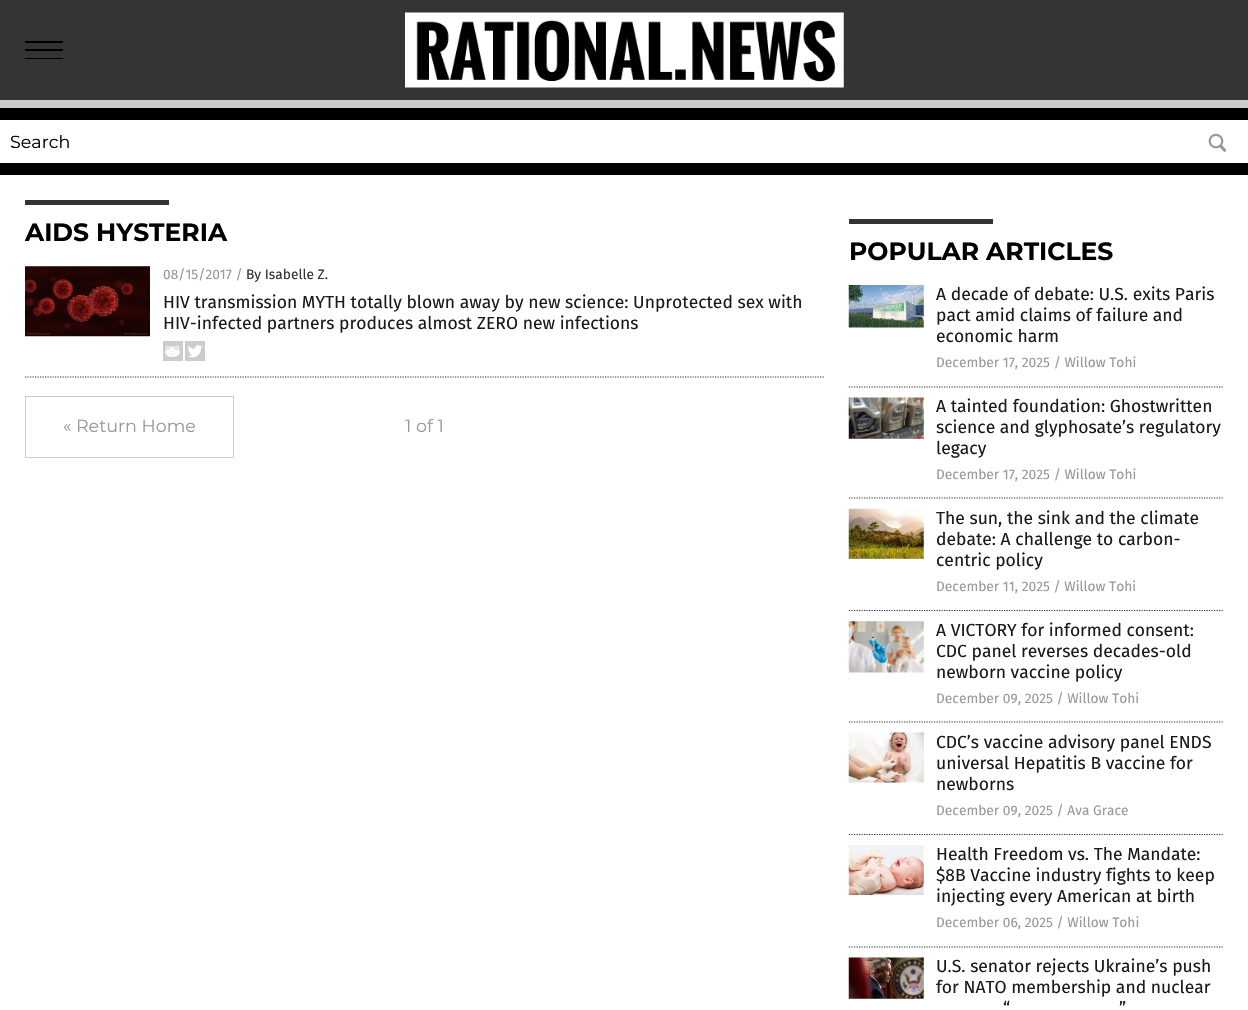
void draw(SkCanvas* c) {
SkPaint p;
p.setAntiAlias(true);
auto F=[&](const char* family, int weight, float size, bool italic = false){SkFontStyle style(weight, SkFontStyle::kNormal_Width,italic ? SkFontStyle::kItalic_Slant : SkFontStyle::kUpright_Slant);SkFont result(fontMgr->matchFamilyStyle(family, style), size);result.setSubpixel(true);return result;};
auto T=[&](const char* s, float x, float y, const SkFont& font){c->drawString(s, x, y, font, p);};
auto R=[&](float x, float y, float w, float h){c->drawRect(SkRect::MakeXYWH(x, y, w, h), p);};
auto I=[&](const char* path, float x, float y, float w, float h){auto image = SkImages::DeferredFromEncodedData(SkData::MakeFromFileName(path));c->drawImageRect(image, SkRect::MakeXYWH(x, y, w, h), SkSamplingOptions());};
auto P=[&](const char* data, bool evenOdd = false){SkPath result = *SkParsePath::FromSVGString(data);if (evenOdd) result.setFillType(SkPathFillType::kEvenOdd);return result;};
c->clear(0xff000000);
p.setColor(0xff343434);
R(0,0,1248,100);
p.setColor(0xff000000);
R(25,58,38,1);
R(25,49,38,2);
R(25,41,38,2);
I("1.png",405,12,439,76);
p.setColor(0xffcccccc);
R(0,100,1248,8);
p.setColor(0xffffffff);
R(0,120,1248,43);
auto f1 = F("Montserrat",400,17.5);
p.setColor(0xff000000);
T("Search",10,148,f1);
I("2.png",1208,133,19,19);
p.setColor(0xffffffff);
R(0,175,1248,835);
p.setColor(0xff343434);
R(25,200,144,5);
auto f2 = F("Montserrat",700,25);
p.setColor(0xff000000);
T("AIDS HYSTERIA",25,241,f2);
p.setStroke(true);
p.setStrokeWidth(1.2);
p.setColor(0xff343434);
p.setPathEffect(SkDashPathEffect::Make({{1.25f,1.25f}}, 0));
c->drawPath(P("M25 377h799"),p);
p.setPathEffect(nullptr);
I("3.png",25,266,125,71);
auto f3 = F("Fira Sans",400,13.75);
p.setStroke(false);
p.setColor(0xff999999);
T("08/15/2017 /",163,279,f3);
p.setColor(0xff333333);
T("By Isabelle Z.",246,279,f3);
auto f4 = F("Fira Sans",400,17.5);
p.setColor(0xff1a1a1a);
T("HIV transmission MYTH totally blown away by new science: Unprotected sex with",163,308,f4);
T("HIV-infected partners produces almost ZERO new infections",163,329,f4);
I("4.png",163,341,20,20);
I("5.png",185,341,20,20);
p.setStroke(true);
p.setStrokeWidth(1);
p.setColor(0xffcccccc);
c->drawRect(SkRect::MakeXYWH(25.5,396.5,208,61),p);
p.setStroke(false);
p.setColor(0xff999999);
T("« Return Home",63,432,f1);
T("1 of 1",405,432,f1);
p.setColor(0xff343434);
R(849,219,144,5);
p.setColor(0xff000000);
T("POPULAR ARTICLES",849,260,f2);
p.setStroke(true);
p.setStrokeWidth(1.2);
p.setColor(0xff343434);
p.setPathEffect(SkDashPathEffect::Make({{1.25f,1.25f}}, 0));
c->drawPath(P("M849 387h375"),p);
p.setPathEffect(nullptr);
I("6.png",848,285,76,43);
p.setStroke(false);
p.setColor(0xff1a1a1a);
T("A decade of debate: U.S. exits Paris",936,300,f4);
T("pact amid claims of failure and",936,321,f4);
T("economic harm",936,342,f4);
p.setColor(0xff999999);
T("December 17, 2025 / Willow Tohi",936,367,f3);
p.setStroke(true);
p.setColor(0xff343434);
p.setPathEffect(SkDashPathEffect::Make({{1.25f,1.25f}}, 0));
c->drawPath(P("M849 498h375"),p);
p.setPathEffect(nullptr);
I("7.png",848,397,76,42);
p.setStroke(false);
p.setColor(0xff1a1a1a);
T("A tainted foundation: Ghostwritten",936,412,f4);
T("science and glyphosate’s regulatory",936,433,f4);
T("legacy",936,454,f4);
p.setColor(0xff999999);
T("December 17, 2025 / Willow Tohi",936,479,f3);
p.setStroke(true);
p.setColor(0xff343434);
p.setPathEffect(SkDashPathEffect::Make({{1.25f,1.25f}}, 0));
c->drawPath(P("M849 610.5h375"),p);
p.setPathEffect(nullptr);
I("8.png",848,508,76,51);
p.setStroke(false);
p.setColor(0xff1a1a1a);
T("The sun, the sink and the climate",936,524,f4);
T("debate: A challenge to carbon-",936,545,f4);
T("centric policy",936,566,f4);
p.setColor(0xff999999);
T("December 11, 2025 / Willow Tohi",936,591,f3);
p.setStroke(true);
p.setColor(0xff343434);
p.setPathEffect(SkDashPathEffect::Make({{1.25f,1.25f}}, 0));
c->drawPath(P("M849 722h375"),p);
p.setPathEffect(nullptr);
I("9.png",848,621,76,52);
p.setStroke(false);
p.setColor(0xff1a1a1a);
T("A VICTORY for informed consent:",936,636,f4);
T("CDC panel reverses decades-old",936,657,f4);
T("newborn vaccine policy",936,678,f4);
p.setColor(0xff999999);
T("December 09, 2025 / Willow Tohi",936,703,f3);
p.setStroke(true);
p.setColor(0xff343434);
p.setPathEffect(SkDashPathEffect::Make({{1.25f,1.25f}}, 0));
c->drawPath(P("M849 834.5h375"),p);
p.setPathEffect(nullptr);
I("10.png",848,732,76,51);
p.setStroke(false);
p.setColor(0xff1a1a1a);
T("CDC’s vaccine advisory panel ENDS",936,748,f4);
T("universal Hepatitis B vaccine for",936,769,f4);
T("newborns",936,790,f4);
p.setColor(0xff999999);
T("December 09, 2025 / Ava Grace",936,815,f3);
p.setStroke(true);
p.setColor(0xff343434);
p.setPathEffect(SkDashPathEffect::Make({{1.25f,1.25f}}, 0));
c->drawPath(P("M849 947h375"),p);
p.setPathEffect(nullptr);
I("11.png",848,845,76,50);
p.setStroke(false);
p.setColor(0xff1a1a1a);
T("Health Freedom vs. The Mandate:",936,860,f4);
T("$8B Vaccine industry fights to keep",936,881,f4);
T("injecting every American at birth",936,902,f4);
p.setColor(0xff999999);
T("December 06, 2025 / Willow Tohi",936,927,f3);
I("12.png",848,957,76,42);
p.setColor(0xff1a1a1a);
T("U.S. senator rejects Ukraine’s push",936,972,f4);
T("for NATO membership and nuclear",936,993,f4);
T("“",1003,1014,f4);
T("”",1119,1014,f4);
}
